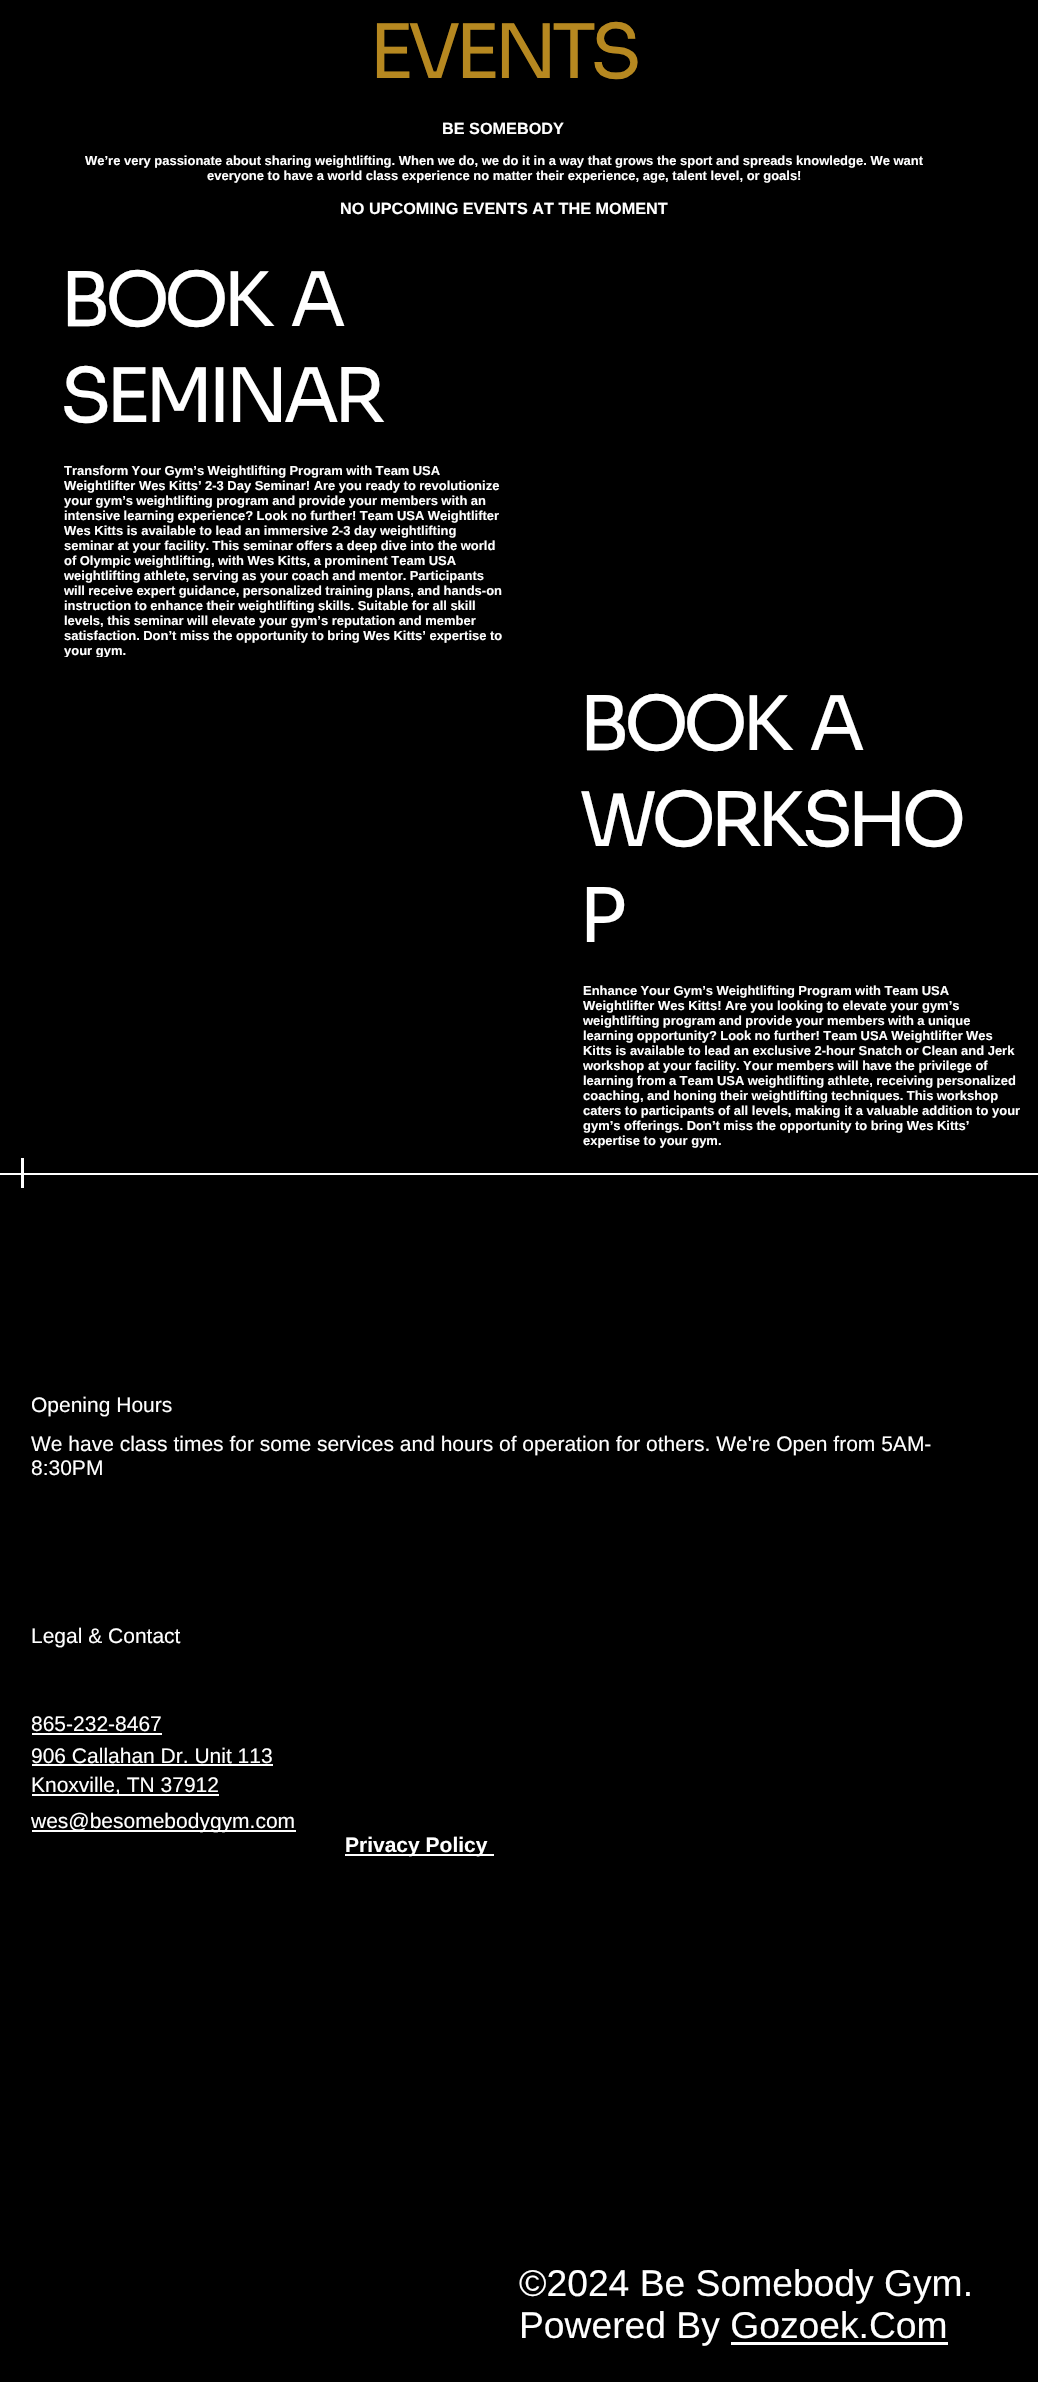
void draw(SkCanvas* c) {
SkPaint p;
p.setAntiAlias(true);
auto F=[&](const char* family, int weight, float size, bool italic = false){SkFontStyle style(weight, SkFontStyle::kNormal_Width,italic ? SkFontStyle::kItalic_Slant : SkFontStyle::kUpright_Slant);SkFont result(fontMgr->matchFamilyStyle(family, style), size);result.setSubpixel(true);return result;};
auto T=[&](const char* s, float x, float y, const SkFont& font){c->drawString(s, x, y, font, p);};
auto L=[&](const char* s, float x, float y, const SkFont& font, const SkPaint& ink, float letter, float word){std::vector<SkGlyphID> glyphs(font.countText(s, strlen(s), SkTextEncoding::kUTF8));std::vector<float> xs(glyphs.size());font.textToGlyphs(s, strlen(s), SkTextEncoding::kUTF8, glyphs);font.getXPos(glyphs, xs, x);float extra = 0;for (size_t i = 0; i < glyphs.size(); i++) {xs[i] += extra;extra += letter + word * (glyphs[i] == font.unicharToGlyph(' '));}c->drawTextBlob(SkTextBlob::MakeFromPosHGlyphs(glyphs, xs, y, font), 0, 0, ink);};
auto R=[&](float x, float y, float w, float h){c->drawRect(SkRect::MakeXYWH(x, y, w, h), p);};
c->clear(0xff000000);
auto f1 = F("Sora",400,75);
p.setColor(0xffb68820);
L("EVENTS",369,78,f1,p,-6,0);
auto f2 = F("Liberation Sans",700,16.25);
p.setColor(0xffffffff);
T("BE SOMEBODY",442,134,f2);
auto f3 = F("Liberation Sans",700,12.98);
T("We’re very passionate about sharing weightlifting. When we do, we do it in a way that grows the sport and spreads knowledge. We want",85,165,f3);
T("everyone to have a world class experience no matter their experience, age, talent level, or goals!",207,180,f3);
T("NO UPCOMING EVENTS AT THE MOMENT",340,214,f2);
L("BOOK  A",60,326,f1,p,-6,0);
L("SEMINAR",60,422,f1,p,-6,0);
L("Transform Your Gym’s Weightlifting Program with Team USA",64,475,f3,p,0,-.25);
L("Weightlifter Wes Kitts’ 2-3 Day Seminar! Are you ready to revolutionize",64,490,f3,p,0,-.1);
L("your gym’s weightlifting program and provide your members with an",64,505,f3,p,0,-.25);
L("intensive learning experience? Look no further! Team USA Weightlifter",64,520,f3,p,0,-.25);
T("Wes Kitts is available to lead an immersive 2-3 day weightlifting",64,535,f3);
T("seminar at your facility. This seminar offers a deep dive into the world",64,550,f3);
L("of Olympic weightlifting, with Wes Kitts, a prominent Team USA",64,565,f3,p,0,-.1);
L("weightlifting athlete, serving as your coach and mentor. Participants",64,580,f3,p,0,-.25);
L("will receive expert guidance, personalized training plans, and hands-on",64,595,f3,p,0,-.25);
L("instruction to enhance their weightlifting skills. Suitable for all skill",64,610,f3,p,0,-.1);
L("levels, this seminar will elevate your gym’s reputation and member",64,625,f3,p,0,-.1);
L("satisfaction. Don’t miss the opportunity to bring Wes Kitts’ expertise to",64,640,f3,p,0,-.1);
T("your gym.",64,655,f3);
p.setColor(0xff000000);
R(64,657,44,1);
p.setColor(0xffffffff);
L("BOOK  A",579,750,f1,p,-6,0);
L("WORKSHO",579,846,f1,p,-6,0);
L("P",579,942,f1,p,-6,0);
L("Enhance Your Gym’s Weightlifting Program with Team USA",583,995,f3,p,0,-.25);
T("Weightlifter Wes Kitts! Are you looking to elevate your gym’s",583,1010,f3);
L("weightlifting program and provide your members with a unique",583,1025,f3,p,0,-.25);
L("learning opportunity? Look no further! Team USA Weightlifter Wes",583,1040,f3,p,0,-.25);
T("Kitts is available to lead an exclusive 2-hour Snatch or Clean and Jerk",583,1055,f3);
T("workshop at your facility. Your members will have the privilege of",583,1070,f3);
L("learning from a Team USA weightlifting athlete, receiving personalized",583,1085,f3,p,0,-.25);
L("coaching, and honing their weightlifting techniques. This workshop",583,1100,f3,p,0,-.25);
T("caters to participants of all levels, making it a valuable addition to your",583,1115,f3);
L("gym’s offerings. Don’t miss the opportunity to bring Wes Kitts’",583,1130,f3,p,0,-.1);
T("expertise to your gym.",583,1145,f3);
R(0,1173,1038,2);
R(21,1158,3,30);
auto f4 = F("Liberation Sans",400,21);
T("Opening Hours",31,1412,f4);
T("We have class times for some services and hours of operation for others. We're Open from 5AM-",31,1451,f4);
T("8:30PM",31,1475,f4);
T("Legal & Contact",31,1643,f4);
T("865-232-8467",31,1731,f4);
R(32,1733,130,2);
T("906 Callahan Dr. Unit 113",31,1763,f4);
R(32,1764,241,2);
R(32,1794,187,2);
T("Knoxville, TN 37912",31,1792,f4);
R(32,1830,264,2);
T("wes@besomebodygym.com",31,1828,f4);
R(345,1854,149,2);
auto f5 = F("Liberation Sans",700,21);
T("Privacy Policy",345,1852,f5);
auto f6 = F("Liberation Sans",400,37.25);
T("©2024 Be Somebody Gym.",519,2296,f6);
T("Powered By Gozoek.Com",519,2338,f6);
R(731,2342,217,3);
}
